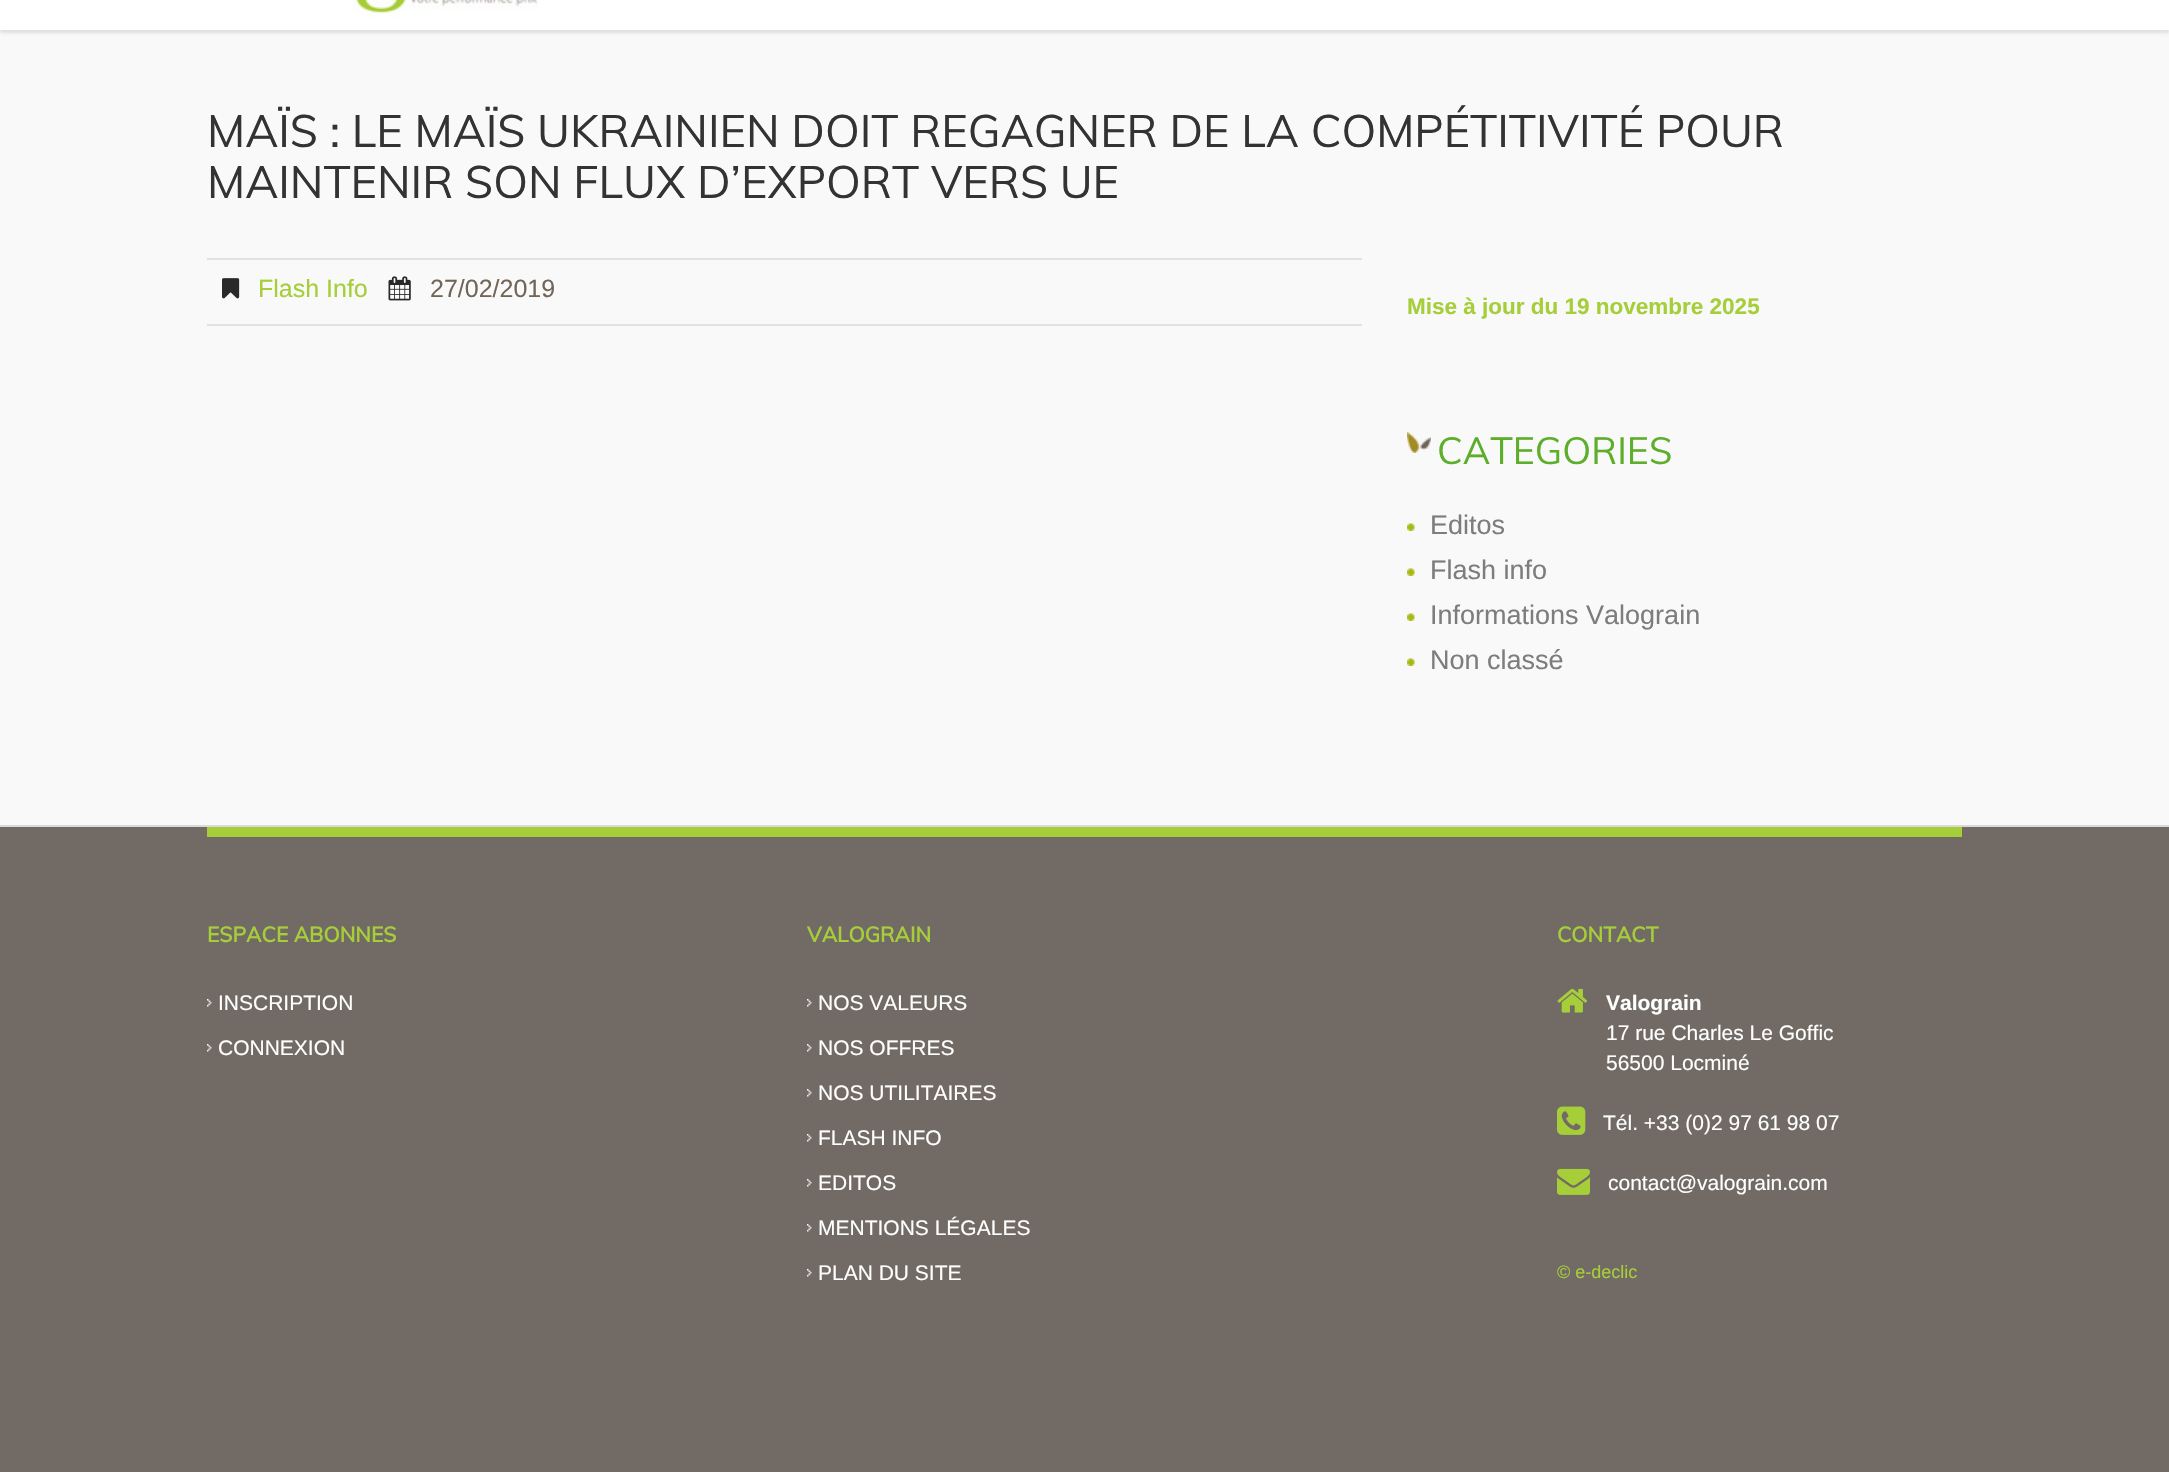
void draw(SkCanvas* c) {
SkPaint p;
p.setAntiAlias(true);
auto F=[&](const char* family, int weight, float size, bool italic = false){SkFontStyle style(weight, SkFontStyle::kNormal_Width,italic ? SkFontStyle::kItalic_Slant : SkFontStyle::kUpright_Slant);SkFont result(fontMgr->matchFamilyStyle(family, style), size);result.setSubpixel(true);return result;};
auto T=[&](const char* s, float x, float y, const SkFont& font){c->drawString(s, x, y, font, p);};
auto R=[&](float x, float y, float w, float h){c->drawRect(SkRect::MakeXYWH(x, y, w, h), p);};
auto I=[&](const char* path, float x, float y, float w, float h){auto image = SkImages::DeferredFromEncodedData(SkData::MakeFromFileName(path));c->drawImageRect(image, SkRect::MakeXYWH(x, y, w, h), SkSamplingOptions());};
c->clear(0xfff9f9f9);
p.setColor(0x1a000000);
p.setMaskFilter(SkMaskFilter::MakeBlur(kNormal_SkBlurStyle, 1.5));
c->drawRect(SkRect::MakeXYWH(0,-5,2169,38),p);
p.setMaskFilter(nullptr);
p.setColor(0xffffffff);
R(0,0,2169,30);
I("1.png",351,0,187,20);
auto f1 = F("Muli",400,45);
p.setColor(0xff333333);
T("MAÏS : LE MAÏS UKRAINIEN DOIT REGAGNER DE LA COMPÉTITIVITÉ POUR",207,147,f1);
T("MAINTENIR SON FLUX D’EXPORT VERS UE",207,198,f1);
p.setColor(0xffe1e1e1);
R(207,258,1155,2);
R(207,324,1155,2);
I("2.png",222,278,18,21);
auto f2 = F("Liberation Sans",400,25);
p.setColor(0xffa6ce39);
T("Flash Info",258,297,f2);
I("3.png",388,276,23,25);
p.setColor(0xff716557);
T("27/02/2019",430,297,f2);
auto f3 = F("Liberation Sans",700,22.5);
p.setColor(0xffa6ce39);
T("Mise à jour du 19 novembre 2025",1407,314,f3);
I("4.png",1407,432,24,21);
auto f4 = F("Muli",400,37.5);
p.setColor(0xff5daf2b);
T("CATEGORIES",1437,464,f4);
I("5.png",1407,523,8,8);
auto f5 = F("Liberation Sans",400,27);
p.setColor(0xff7d7d7d);
T("Editos",1430,534,f5);
I("5.png",1407,568,8,8);
T("Flash info",1430,579,f5);
I("5.png",1407,613,8,8);
T("Informations Valograin",1430,624,f5);
I("5.png",1407,658,8,8);
T("Non classé",1430,669,f5);
p.setColor(0xff726b65);
R(0,827,2169,645);
p.setColor(0xffd9d9d9);
R(0,825,2169,2);
p.setColor(0xffa6ce39);
R(207,827,1755,10);
auto f6 = F("Muli",700,21);
T("ESPACE ABONNES",207,942,f6);
I("6.png",207,999,5,8);
auto f7 = F("Liberation Sans",400,21);
p.setColor(0xffffffff);
T("INSCRIPTION",218,1010,f7);
I("6.png",207,1044,5,8);
T("CONNEXION",218,1055,f7);
p.setColor(0xffa6ce39);
T("VALOGRAIN",807,942,f6);
I("6.png",807,999,5,8);
p.setColor(0xffffffff);
T("NOS VALEURS",818,1010,f7);
I("6.png",807,1044,5,8);
T("NOS OFFRES",818,1055,f7);
I("6.png",807,1089,5,8);
T("NOS UTILITAIRES",818,1100,f7);
I("6.png",807,1134,5,8);
T("FLASH INFO",818,1145,f7);
I("6.png",807,1179,5,8);
T("EDITOS",818,1190,f7);
I("6.png",807,1224,5,8);
T("MENTIONS LÉGALES",818,1235,f7);
I("6.png",807,1269,5,8);
T("PLAN DU SITE",818,1280,f7);
p.setColor(0xffa6ce39);
T("CONTACT",1557,942,f6);
I("7.png",1557,988,31,25);
auto f8 = F("Liberation Sans",700,21);
p.setColor(0xffffffff);
T("Valograin",1606,1010,f8);
T("17 rue Charles Le Goffic",1606,1040,f7);
T("56500 Locminé",1606,1070,f7);
I("8.png",1557,1106,29,29);
T("Tél. +33 (0)2 97 61 98 07",1603,1130,f7);
I("9.png",1557,1168,33,27);
T("contact@valograin.com",1608,1190,f7);
auto f9 = F("Liberation Sans",400,18);
p.setColor(0xffa6ce39);
T("© e-declic",1557,1278,f9);
}
